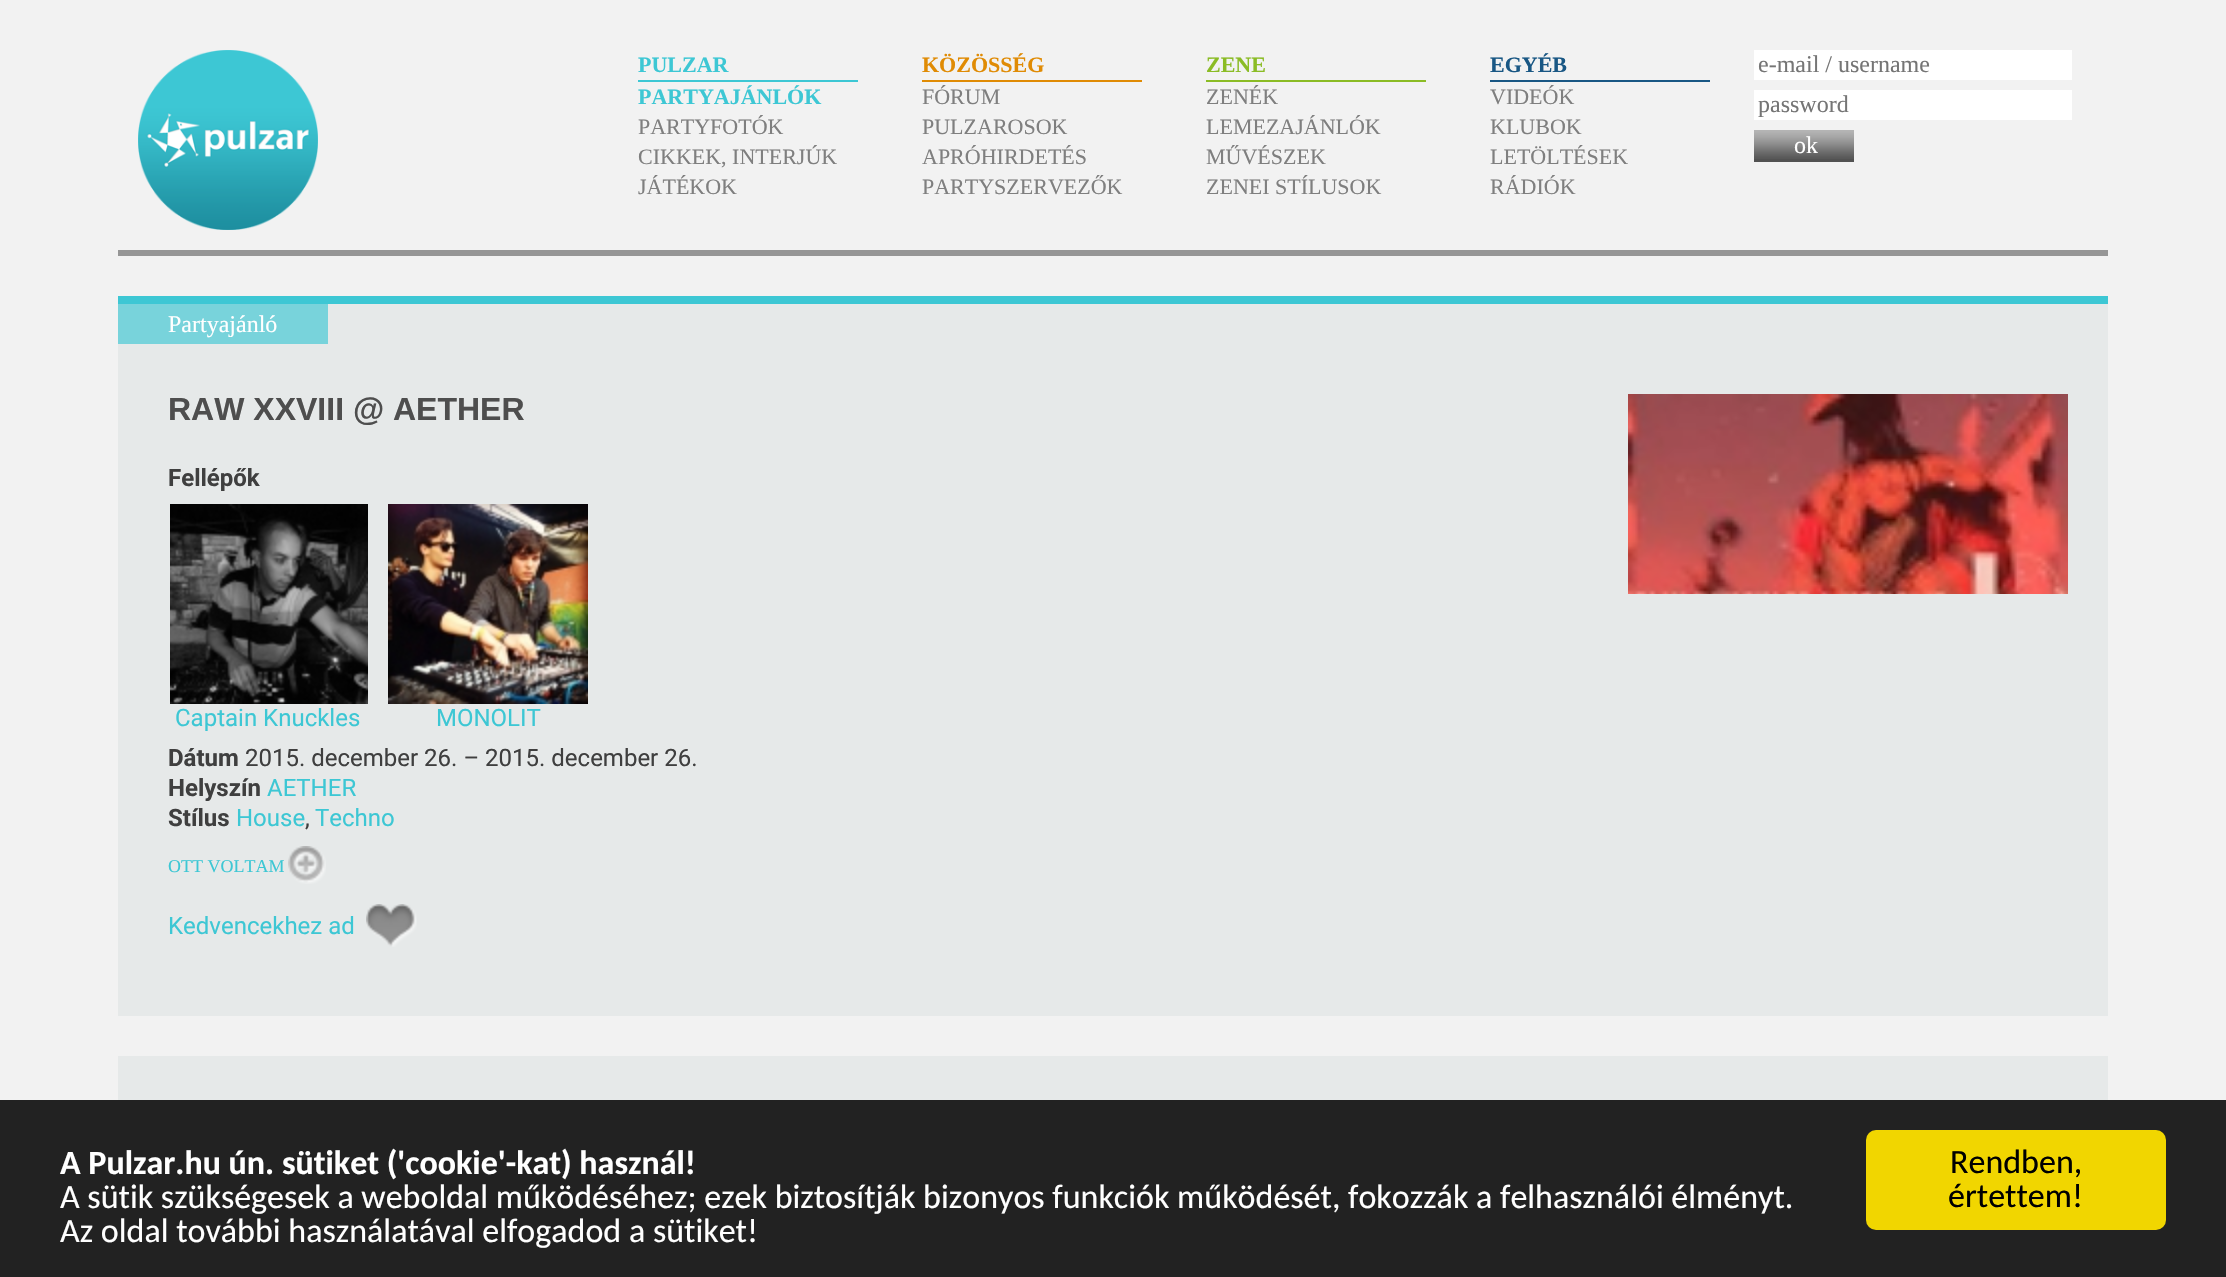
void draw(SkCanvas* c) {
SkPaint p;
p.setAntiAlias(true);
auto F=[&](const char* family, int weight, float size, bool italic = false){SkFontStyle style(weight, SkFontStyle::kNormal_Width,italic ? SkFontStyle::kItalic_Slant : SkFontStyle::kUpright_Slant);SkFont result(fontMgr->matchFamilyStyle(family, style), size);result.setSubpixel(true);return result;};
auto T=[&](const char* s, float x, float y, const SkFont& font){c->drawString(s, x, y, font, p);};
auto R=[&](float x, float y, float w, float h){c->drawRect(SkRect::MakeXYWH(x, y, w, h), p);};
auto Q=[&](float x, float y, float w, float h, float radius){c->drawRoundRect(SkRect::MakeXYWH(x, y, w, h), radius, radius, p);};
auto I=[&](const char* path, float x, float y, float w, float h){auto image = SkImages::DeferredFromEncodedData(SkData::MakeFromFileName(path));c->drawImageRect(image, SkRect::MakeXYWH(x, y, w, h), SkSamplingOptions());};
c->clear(0xfff2f2f2);
I("1.png",138,50,180,180);
p.setColor(0xff3dc7d4);
R(638,80,220,2);
auto f1 = F("Liberation Serif",700,22);
T("PULZAR",638,72,f1);
T("PARTYAJÁNLÓK",638,104,f1);
auto f2 = F("Liberation Serif",400,22);
p.setColor(0xff7f7f7f);
T("PARTYFOTÓK",638,134,f2);
T("CIKKEK, INTERJÚK",638,164,f2);
T("JÁTÉKOK",638,194,f2);
p.setColor(0xffe08b04);
R(922,80,220,2);
T("KÖZÖSSÉG",922,72,f1);
p.setColor(0xff7f7f7f);
T("FÓRUM",922,104,f2);
T("PULZAROSOK",922,134,f2);
T("APRÓHIRDETÉS",922,164,f2);
T("PARTYSZERVEZŐK",922,194,f2);
p.setColor(0xff8bbc25);
R(1206,80,220,2);
T("ZENE",1206,72,f1);
p.setColor(0xff7f7f7f);
T("ZENÉK",1206,104,f2);
T("LEMEZAJÁNLÓK",1206,134,f2);
T("MŰVÉSZEK",1206,164,f2);
T("ZENEI STÍLUSOK",1206,194,f2);
p.setColor(0xff195784);
R(1490,80,220,2);
T("EGYÉB",1490,72,f1);
p.setColor(0xff7f7f7f);
T("VIDEÓK",1490,104,f2);
T("KLUBOK",1490,134,f2);
T("LETÖLTÉSEK",1490,164,f2);
T("RÁDIÓK",1490,194,f2);
p.setColor(0xffffffff);
R(1754,50,318,30);
auto f3 = F("Liberation Serif",400,24);
p.setColor(0xff757575);
T("e-mail / username",1758,72,f3);
p.setColor(0xffffffff);
R(1754,90,318,30);
p.setColor(0xff757575);
T("password",1758,112,f3);
p.setColor(0xff525252);
R(1754,159,100,3);
I("2.png",1754,130,100,29);
p.setColor(0xffffffff);
T("ok",1794,153,f3);
p.setColor(0xff969696);
R(118,250,1990,6);
p.setColor(0xffe6e9e9);
R(118,304,1990,712);
p.setColor(0xff3dc7d4);
R(118,296,1990,8);
p.setColor(0xff78d3db);
R(118,304,210,40);
p.setColor(0xffffffff);
T("Partyajánló",168,332,f3);
auto f4 = F("Liberation Sans",700,32);
p.setColor(0xff4e4e4e);
T("RAW XXVIII @ AETHER",168,420,f4);
I("3.png",1628,394,440,200);
auto f5 = F("Roboto",700,24);
p.setColor(0xff3f3f3f);
T("Fellépők",168,486,f5);
I("4.png",170,504,198,200);
auto f6 = F("Roboto",400,24);
p.setColor(0xff3dc7d4);
T("Captain Knuckles",175,726,f6);
I("5.png",388,504,200,200);
T("MONOLIT",436,726,f6);
p.setColor(0xff3f3f3f);
T("Dátum",168,766,f5);
T("2015. december 26. – 2015. december 26.",245,766,f6);
T("Helyszín",168,796,f5);
p.setColor(0xff3dc7d4);
T("AETHER",267,796,f6);
p.setColor(0xff3f3f3f);
T("Stílus",168,826,f5);
p.setColor(0xff3dc7d4);
T("House",236,826,f6);
p.setColor(0xff3f3f3f);
T(",",305,826,f6);
p.setColor(0xff3dc7d4);
T("Techno",315,826,f6);
I("6.png",288,846,38,38);
auto f7 = F("Liberation Serif",400,18);
T("OTT VOLTAM",168,872,f7);
I("7.png",366,904,51,43);
T("Kedvencekhez ad",168,934,f6);
p.setColor(0xffe6e9e9);
R(118,1056,1990,44);
p.setColor(0xff222222);
R(0,1100,2226,177);
auto f8 = F("Carlito",700,34);
p.setColor(0xffffffff);
T("A Pulzar.hu ún. sütiket ('cookie'-kat) használ!",60,1174,f8);
auto f9 = F("Carlito",400,34);
T("A sütik szükségesek a weboldal működéséhez; ezek biztosítják bizonyos funkciók működését, fokozzák a felhasználói élményt.",60,1208,f9);
T("Az oldal további használatával elfogadod a sütiket!",60,1242,f9);
p.setColor(0xfff1d600);
Q(1866,1130,300,100,10);
p.setColor(0xff000000);
T("Rendben,",1950,1173,f9);
T("értettem!",1948,1207,f9);
}
